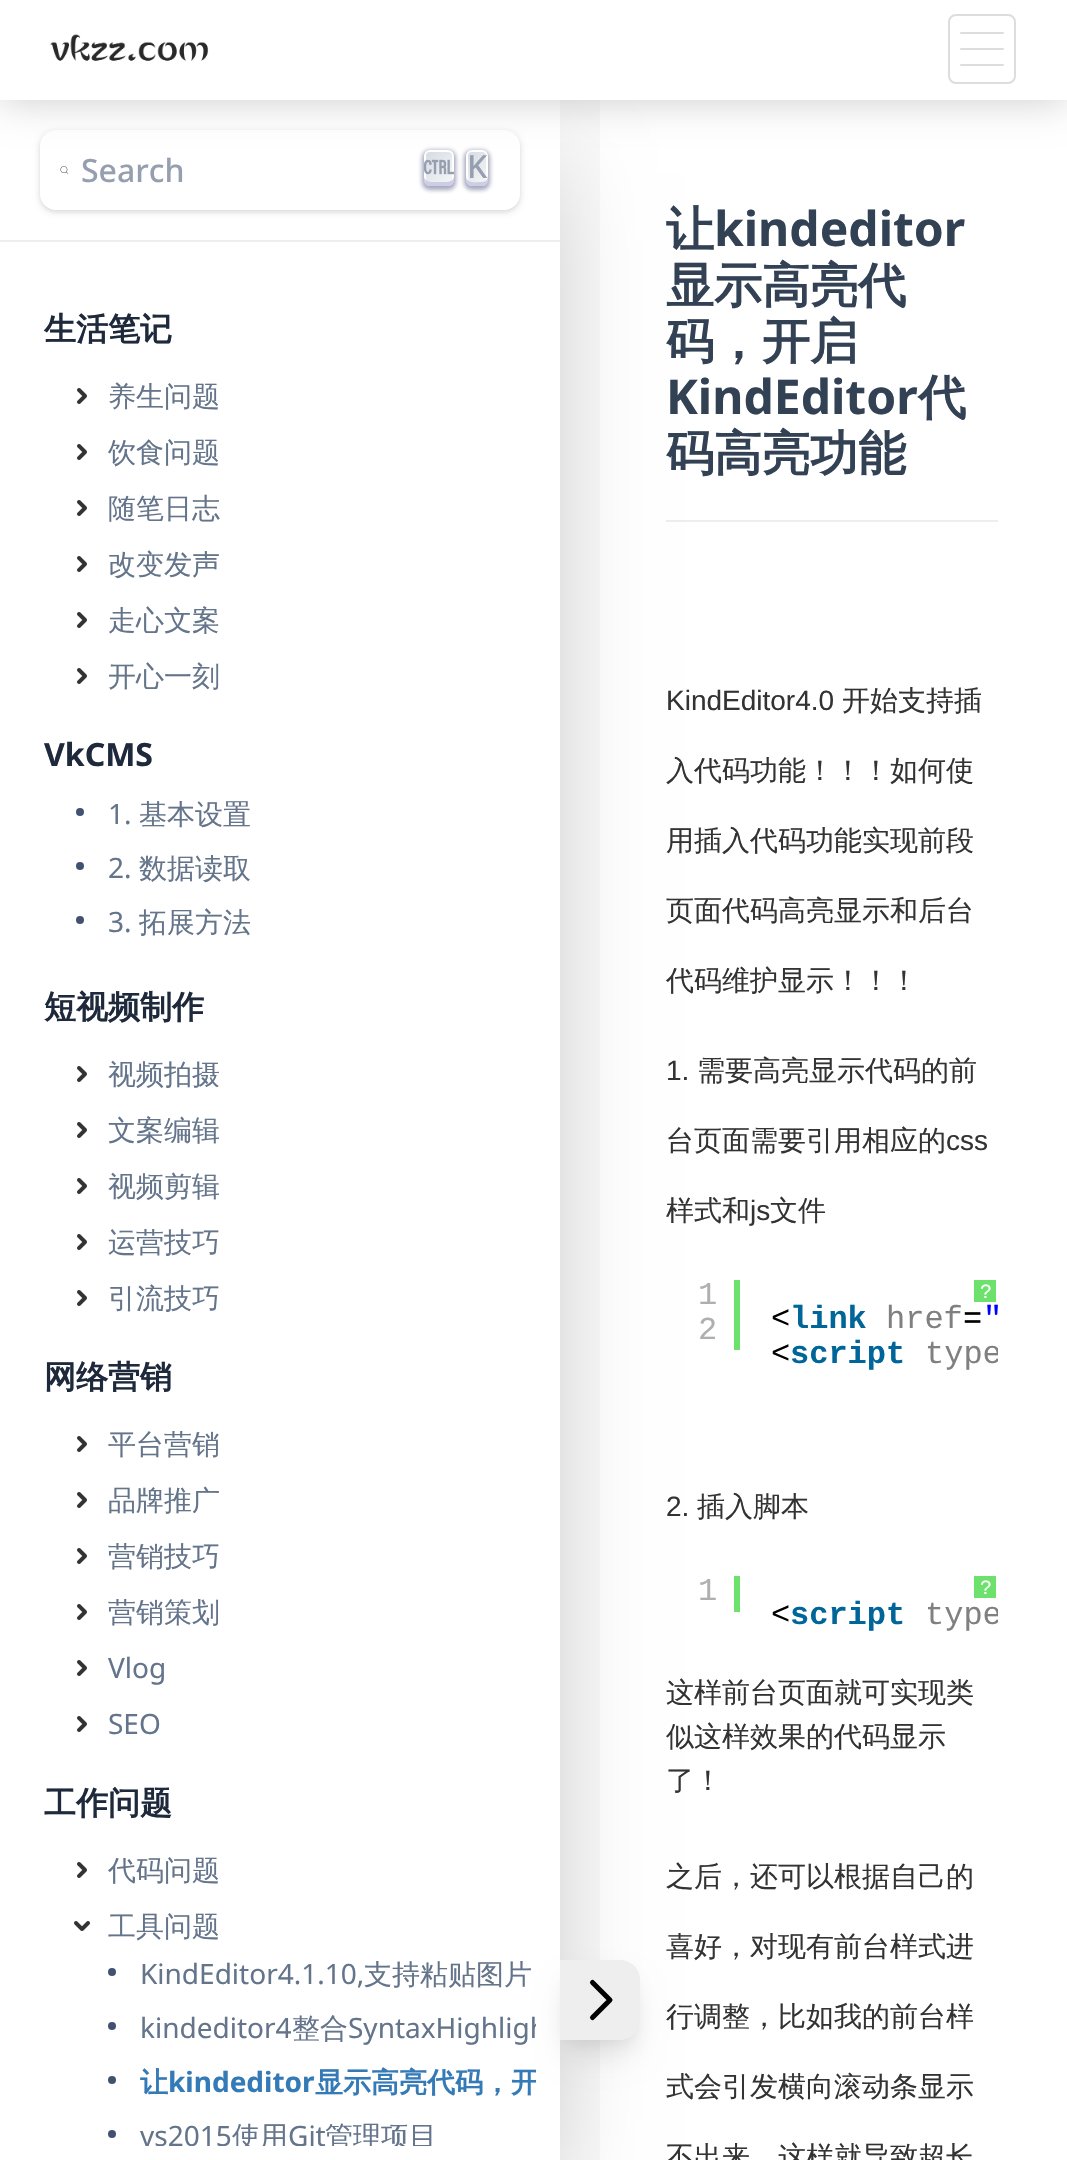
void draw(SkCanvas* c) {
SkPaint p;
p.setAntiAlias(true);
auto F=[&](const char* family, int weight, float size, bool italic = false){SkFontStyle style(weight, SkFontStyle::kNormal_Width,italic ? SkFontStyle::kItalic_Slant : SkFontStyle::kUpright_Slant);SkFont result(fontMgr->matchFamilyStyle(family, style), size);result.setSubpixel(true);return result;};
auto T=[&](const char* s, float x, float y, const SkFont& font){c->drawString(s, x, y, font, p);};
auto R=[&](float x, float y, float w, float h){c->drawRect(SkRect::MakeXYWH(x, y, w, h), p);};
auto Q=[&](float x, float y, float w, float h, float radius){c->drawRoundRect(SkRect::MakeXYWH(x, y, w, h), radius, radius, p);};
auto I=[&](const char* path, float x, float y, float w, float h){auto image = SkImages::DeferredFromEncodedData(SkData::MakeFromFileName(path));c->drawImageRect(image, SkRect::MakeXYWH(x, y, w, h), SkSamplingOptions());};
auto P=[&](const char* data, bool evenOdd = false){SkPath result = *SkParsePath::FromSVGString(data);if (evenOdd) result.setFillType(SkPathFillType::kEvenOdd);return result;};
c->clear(0xffffffff);
p.setColor(0xfff9f9f9);
R(560,100,40,2060);
p.setColor(0xffeeeeee);
R(666,520,332,2);
p.setColor(0x40000000);
p.setMaskFilter(SkMaskFilter::MakeBlur(kNormal_SkBlurStyle, 50));
c->drawRect(SkRect::MakeXYWH(24,174,512,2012),p);
p.setMaskFilter(nullptr);
p.setColor(0xffffffff);
R(0,100,560,2060);
p.setColor(0x0f000000);
p.setMaskFilter(SkMaskFilter::MakeBlur(kNormal_SkBlurStyle, 2));
c->drawRoundRect(SkRect::MakeXYWH(40,132,480,80),16,16,p);
p.setMaskFilter(nullptr);
p.setColor(0x1a000000);
p.setMaskFilter(SkMaskFilter::MakeBlur(kNormal_SkBlurStyle, 3));
c->drawRoundRect(SkRect::MakeXYWH(40,132,480,80),16,16,p);
p.setMaskFilter(nullptr);
p.setColor(0xffffffff);
Q(40,130,480,80,16);
p.setColor(0x661e235a);
p.setMaskFilter(SkMaskFilter::MakeBlur(kNormal_SkBlurStyle, 2));
c->drawRoundRect(SkRect::MakeXYWH(422,150,34,40),8,8,p);
p.setMaskFilter(nullptr);
{
const SkColor colors[] = {0xffd5dbe4,0xfff8f8f8};
const float stops[] = {0,1};
const SkPoint ends[] = {{423,152}, {456,185}};
p.setShader(SkGradientShader::MakeLinear(ends, colors, stops, 2, SkTileMode::kClamp));
p.setAlpha(255);
}
c->drawRoundRect(SkRect::MakeXYWH(425,151,28,34),5,5,p);
p.setStroke(true);
p.setStrokeWidth(2);
p.setShader(nullptr);
p.setColor(0xffffffff);
c->drawRoundRect(SkRect::MakeXYWH(425,151,28,34),5,5,p);
I("3.png",424,159,30,16);
p.setStroke(false);
p.setColor(0x661e235a);
p.setMaskFilter(SkMaskFilter::MakeBlur(kNormal_SkBlurStyle, 2));
c->drawRoundRect(SkRect::MakeXYWH(464,150,26,40),8,8,p);
p.setMaskFilter(nullptr);
{
const SkColor colors[] = {0xffd5dbe4,0xfff8f8f8};
const float stops[] = {0,1};
const SkPoint ends[] = {{463,154}, {492,183}};
p.setShader(SkGradientShader::MakeLinear(ends, colors, stops, 2, SkTileMode::kClamp));
p.setAlpha(255);
}
c->drawRoundRect(SkRect::MakeXYWH(467,151,20,34),5,5,p);
p.setStroke(true);
p.setShader(nullptr);
p.setColor(0xffffffff);
c->drawRoundRect(SkRect::MakeXYWH(467,151,20,34),5,5,p);
p.setStroke(false);
p.setColor(0x33000000);
p.setMaskFilter(SkMaskFilter::MakeBlur(kNormal_SkBlurStyle, 20));
c->drawRect(SkRect::MakeXYWH(0,0,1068,100),p);
p.setMaskFilter(nullptr);
p.setColor(0xffffffff);
R(0,0,1067,100);
I("1.png",50,34,159,27);
p.setStroke(true);
p.setColor(0xffdddddd);
c->drawRoundRect(SkRect::MakeXYWH(949,15,66,68),7,7,p);
p.setStroke(false);
Q(960,32,44,2,1);
Q(960,48,44,2,1);
Q(960,64,44,2,1);
p.setColor(0xffeeeeee);
R(0,240,560,2);
I("2.png",60,166,8,8);
auto f1 = F("Noto Sans",500,32);
p.setColor(0xff969faf);
T("Search",81,182,f1);
p.setColor(0xffcdcde6);
c->drawPath(P("M424 176v4c0 3.5 2.5 6 6 6h18c3.5 0 6-2.5 6-6v-4c0 7.5-10.5 6-15 6c-4.5 0-15 1.5-15-6z"),p);
c->drawPath(P("M488 156.5v-1zm0 15.5c0 5 0 10-6 10h-3c-5 .5-12 1-13-5v3c0 3.5 2.5 6 6 6h10c3.5 0 6-2.5 6-6z",true),p);
p.setColor(0xff969faf);
T("K",467,178,f1);
auto f2 = F("WenQuanYi Zen Hei",700,32);
p.setColor(0xff1e293b);
T("生活笔记",44,340,f2);
I("4.png",77,388,10,16);
auto f3 = F("WenQuanYi Zen Hei",500,28);
p.setColor(0xff64748b);
T("养生问题",108,406,f3);
I("4.png",77,444,10,16);
T("饮食问题",108,462,f3);
I("4.png",77,500,10,16);
T("随笔日志",108,518,f3);
I("4.png",77,556,10,16);
T("改变发声",108,574,f3);
I("4.png",77,612,10,16);
T("走心文案",108,630,f3);
I("4.png",77,668,10,16);
T("开心一刻",108,686,f3);
auto f4 = F("Noto Sans",700,32);
p.setColor(0xff1e293b);
T("VkCMS",44,766,f4);
p.setColor(0xff42526e);
c->drawCircle(80,812,4,p);
auto f5 = F("Noto Sans",400,28);
p.setColor(0xff64748b);
T("1.",108,824,f5);
T("基本设置",139,824,f3);
p.setColor(0xff42526e);
c->drawCircle(80,866,4,p);
p.setColor(0xff64748b);
T("2.",108,878,f5);
T("数据读取",139,878,f3);
p.setColor(0xff42526e);
c->drawCircle(80,920,4,p);
p.setColor(0xff64748b);
T("3.",108,932,f5);
T("拓展方法",139,932,f3);
p.setColor(0xff1e293b);
T("短视频制作",44,1018,f2);
I("4.png",77,1066,10,16);
p.setColor(0xff64748b);
T("视频拍摄",108,1084,f3);
I("4.png",77,1122,10,16);
T("文案编辑",108,1140,f3);
I("4.png",77,1178,10,16);
T("视频剪辑",108,1196,f3);
I("4.png",77,1234,10,16);
T("运营技巧",108,1252,f3);
I("4.png",77,1290,10,16);
T("引流技巧",108,1308,f3);
p.setColor(0xff1e293b);
T("网络营销",44,1388,f2);
I("4.png",77,1436,10,16);
p.setColor(0xff64748b);
T("平台营销",108,1454,f3);
I("4.png",77,1492,10,16);
T("品牌推广",108,1510,f3);
I("4.png",77,1548,10,16);
T("营销技巧",108,1566,f3);
I("4.png",77,1604,10,16);
T("营销策划",108,1622,f3);
I("4.png",77,1660,10,16);
T("Vlog",108,1678,f5);
I("4.png",77,1716,10,16);
T("SEO",108,1734,f5);
p.setColor(0xff1e293b);
T("工作问题",44,1814,f2);
I("4.png",77,1862,10,16);
p.setColor(0xff64748b);
T("代码问题",108,1880,f3);
I("5.png",74,1921,16,10);
T("工具问题",108,1936,f3);
p.setColor(0xff42526e);
c->drawCircle(112,1972,4,p);
p.setColor(0xff64748b);
T("KindEditor4.1.10,",140,1984,f5);
T("支持粘贴图片",364,1984,f3);
p.setColor(0xff42526e);
c->drawCircle(112,2026,4,p);
p.setColor(0xff64748b);
T("kindeditor4",140,2038,f5);
T("整合",292,2038,f3);
c->save();
c->clipRect(SkRect::MakeXYWH(88,2006,448,50));
T("SyntaxHighligh",348,2038,f5);
c->restore();
p.setColor(0xff42526e);
c->drawCircle(112,2080,4,p);
auto f6 = F("WenQuanYi Zen Hei",700,28);
p.setColor(0xff337ab7);
T("让",140,2092,f6);
auto f7 = F("Noto Sans",700,28);
T("kindeditor",168,2092,f7);
c->save();
c->clipRect(SkRect::MakeXYWH(88,2060,448,50));
T("显示高亮代码，开",315,2092,f6);
c->restore();
p.setColor(0xff42526e);
c->drawCircle(112,2134,4,p);
c->save();
c->clipRect(SkRect::MakeXYWH(88,2114,448,32));
p.setColor(0xff64748b);
T("vs2015",140,2146,f5);
T("使用",232,2146,f3);
T("Git",288,2146,f5);
T("管理项目",325,2146,f3);
c->restore();
p.setColor(0x0d000000);
p.setMaskFilter(SkMaskFilter::MakeBlur(kNormal_SkBlurStyle, 6));
c->drawRoundRect(SkRect::MakeXYWH(564,1972,72,72),16,16,p);
p.setMaskFilter(nullptr);
p.setColor(0x1a000000);
p.setMaskFilter(SkMaskFilter::MakeBlur(kNormal_SkBlurStyle, 15));
c->drawRoundRect(SkRect::MakeXYWH(566,1986,68,68),14,14,p);
p.setMaskFilter(nullptr);
p.setColor(0xffeeeeee);
c->drawPath(P("M560 1960h60c11 0 20 9 20 20v40c0 11-9 20-20 20h-60z"),p);
p.setStroke(true);
p.setStrokeWidth(5);
p.setStrokeCap(SkPaint::kRound_Cap);
p.setStrokeJoin(SkPaint::kRound_Join);
p.setColor(0xff000000);
c->drawPath(P("M592.5 1982.5l17.5 17.5l-17.5 17.5"),p);
auto f8 = F("WenQuanYi Zen Hei",700,48);
p.setStroke(false);
p.setColor(0xff334155);
T("让",666,246,f8);
auto f9 = F("Noto Sans",700,48);
T("kindeditor",714,246,f9);
T("显示高亮代",666,302,f8);
T("码，开启",666,358,f8);
T("KindEditor",666,414,f9);
T("代",918,414,f8);
T("码高亮功能",666,470,f8);
auto f10 = F("Liberation Sans",400,28);
p.setColor(0xff333333);
T("KindEditor4.0",666,710,f10);
T("开始支持插",842,710,f3);
T("入代码功能！！！如何使",666,780,f3);
T("用插入代码功能实现前段",666,850,f3);
T("页面代码高亮显示和后台",666,920,f3);
T("代码维护显示！！！",666,990,f3);
T("1.",666,1080,f10);
T("需要高亮显示代码的前",697,1080,f3);
T("台页面需要引用相应的",666,1150,f3);
T("css",946,1150,f10);
T("样式和",666,1220,f3);
T("js",750,1220,f10);
T("文件",770,1220,f3);
p.setColor(0xff6ce26c);
R(734,1280,6,70);
auto f11 = F("Liberation Mono",400,32);
p.setColor(0xffafafaf);
T("1",698,1304,f11);
T("2",698,1339,f11);
p.setColor(0xff000000);
T("<",771,1328,f11);
auto f12 = F("Liberation Mono",700,32);
p.setColor(0xff006699);
T("link",790,1328,f12);
p.setColor(0xff808080);
T("href",886,1328,f11);
p.setColor(0xff000000);
T("=",963,1328,f11);
p.setColor(0xff0000ff);
T("\"",983,1328,f11);
p.setColor(0xff000000);
T("<",771,1363,f11);
p.setColor(0xff006699);
T("script",790,1363,f12);
c->save();
c->clipRect(SkRect::MakeXYWH(666,1278,332,98));
p.setColor(0xff808080);
T("type",925,1363,f11);
c->restore();
p.setColor(0xff6ce26c);
R(974,1280,22,22);
auto f13 = F("Liberation Mono",400,20);
p.setColor(0xffffffff);
T("?",980,1298,f13);
p.setColor(0xff333333);
T("2.",666,1516,f10);
T("插入脚本",697,1516,f3);
p.setColor(0xff6ce26c);
R(734,1576,6,36);
p.setColor(0xffafafaf);
T("1",698,1600,f11);
p.setColor(0xff000000);
T("<",771,1624,f11);
p.setColor(0xff006699);
T("script",790,1624,f12);
c->save();
c->clipRect(SkRect::MakeXYWH(666,1574,332,64));
p.setColor(0xff808080);
T("type",925,1624,f11);
c->restore();
p.setColor(0xff6ce26c);
R(974,1576,22,22);
p.setColor(0xffffffff);
T("?",980,1594,f13);
p.setColor(0xff333333);
T("这样前台页面就可实现类",666,1702,f3);
T("似这样效果的代码显示",666,1746,f3);
T("了！",666,1790,f3);
T("之后，还可以根据自己的",666,1886,f3);
T("喜好，对现有前台样式进",666,1956,f3);
T("行调整，比如我的前台样",666,2026,f3);
T("式会引发横向滚动条显示",666,2096,f3);
T("不出来，这样就导致超长",666,2166,f3);
}
